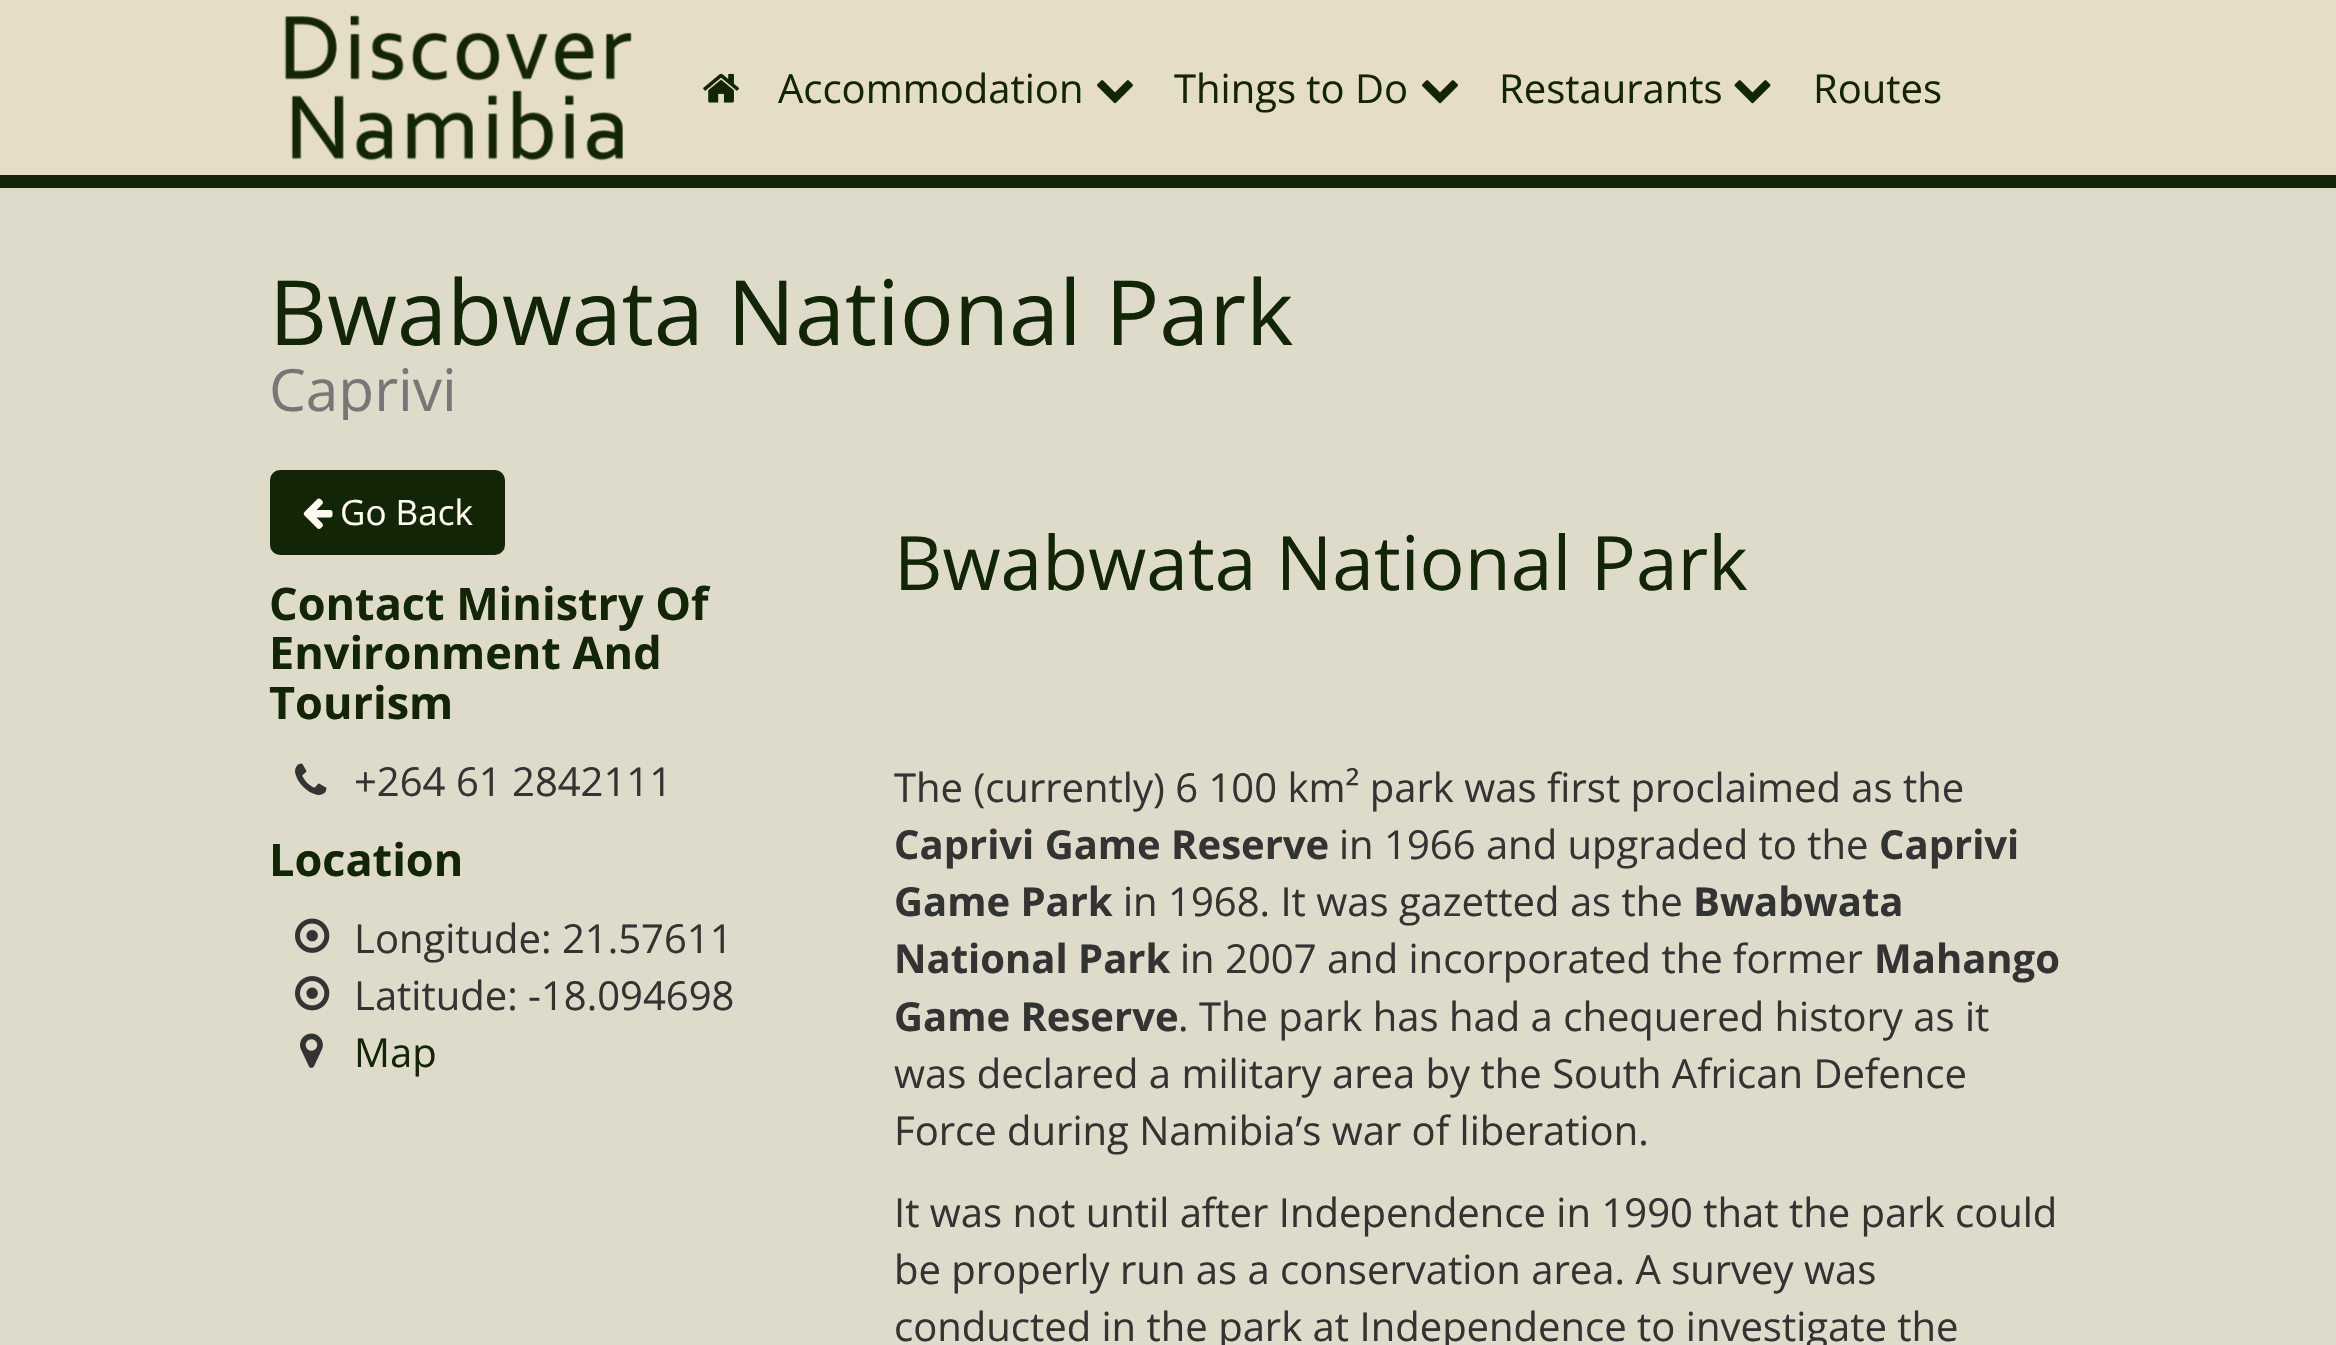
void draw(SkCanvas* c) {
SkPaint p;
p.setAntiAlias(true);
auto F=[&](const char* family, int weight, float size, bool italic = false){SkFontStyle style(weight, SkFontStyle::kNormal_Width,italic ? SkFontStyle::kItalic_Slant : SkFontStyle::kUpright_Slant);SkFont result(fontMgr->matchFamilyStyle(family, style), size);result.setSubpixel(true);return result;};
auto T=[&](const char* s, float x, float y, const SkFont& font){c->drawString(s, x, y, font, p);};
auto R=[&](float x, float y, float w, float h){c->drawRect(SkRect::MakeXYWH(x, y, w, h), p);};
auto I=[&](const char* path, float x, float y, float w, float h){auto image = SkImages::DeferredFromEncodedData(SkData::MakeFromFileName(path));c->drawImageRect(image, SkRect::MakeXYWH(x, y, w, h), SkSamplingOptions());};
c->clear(0xffdedbcb);
p.setColor(0xffe6ddc9);
R(0,0,2336,175);
p.setColor(0xff132507);
R(0,175,2336,13);
I("1.png",284,15,348,146);
I("2.png",703,73,36,30);
auto f1 = F("Open Sans",400,40);
T("Accommodation",778,103,f1);
I("3.png",1097,80,36,24);
T("Things to Do",1174,103,f1);
I("3.png",1422,80,36,24);
T("Restaurants",1499,103,f1);
I("4.png",1734,80,37,24);
T("Routes",1813,103,f1);
auto f2 = F("Open Sans",400,90);
T("Bwabwata National Park",269,345,f2);
c->save();
c->clipRect(SkRect::MakeXYWH(258,363,1812,57));
auto f3 = F("Open Sans",400,58.5);
p.setColor(0xff777777);
T("Caprivi",269,411,f3);
c->restore();
p.setColor(0xff132507);
c->drawRoundRect(SkRect::MakeXYWH(271.5,471.5,232,82),8.5,8.5,p);
p.setStroke(true);
p.setStrokeWidth(3);
c->drawRoundRect(SkRect::MakeXYWH(271.5,471.5,232,82),8.5,8.5,p);
I("5.png",303,498,30,31);
auto f4 = F("Open Sans",400,35);
p.setStroke(false);
p.setColor(0xfffffbf0);
T("Go Back",340,525,f4);
auto f5 = F("Open Sans",700,45);
p.setColor(0xff132507);
T("Contact Ministry Of",269,620,f5);
T("Environment And",269,669,f5);
T("Tourism",269,719,f5);
I("6.png",295,763,32,32);
p.setColor(0xff333333);
T("+264 61 2842111",354,796,f1);
p.setColor(0xff132507);
T("Location",269,876,f5);
I("7.png",295,918,35,35);
p.setColor(0xff333333);
T("Longitude: 21.57611",354,953,f1);
I("8.png",295,976,35,35);
T("Latitude: -18.094698",354,1010,f1);
I("9.png",300,1033,23,35);
p.setColor(0xff132507);
T("Map",354,1067,f1);
auto f6 = F("Open Sans",400,75);
T("Bwabwata National Park",894,590,f6);
p.setColor(0xff333333);
T("The (currently) 6 100 km² park was first proclaimed as the",894,802,f1);
auto f7 = F("Open Sans",700,40);
T("Caprivi Game Reserve",894,859,f7);
T("in 1966 and upgraded to the",1339,859,f1);
T("Caprivi",1879,859,f7);
T("Game Park",894,916,f7);
T("in 1968. It was gazetted as the",1123,916,f1);
T("Bwabwata",1693,916,f7);
T("National Park",894,973,f7);
T("in 2007 and incorporated the former",1180,973,f1);
T("Mahango",1874,973,f7);
T("Game Reserve",894,1031,f7);
T(". The park has had a chequered history as it",1178,1031,f1);
T("was declared a military area by the South African Defence",894,1088,f1);
T("Force during Namibia’s war of liberation.",894,1145,f1);
T("It was not until after Independence in 1990 that the park could",894,1227,f1);
T("be properly run as a conservation area. A survey was",894,1284,f1);
T("conducted in the park at Independence to investigate the",894,1341,f1);
}
